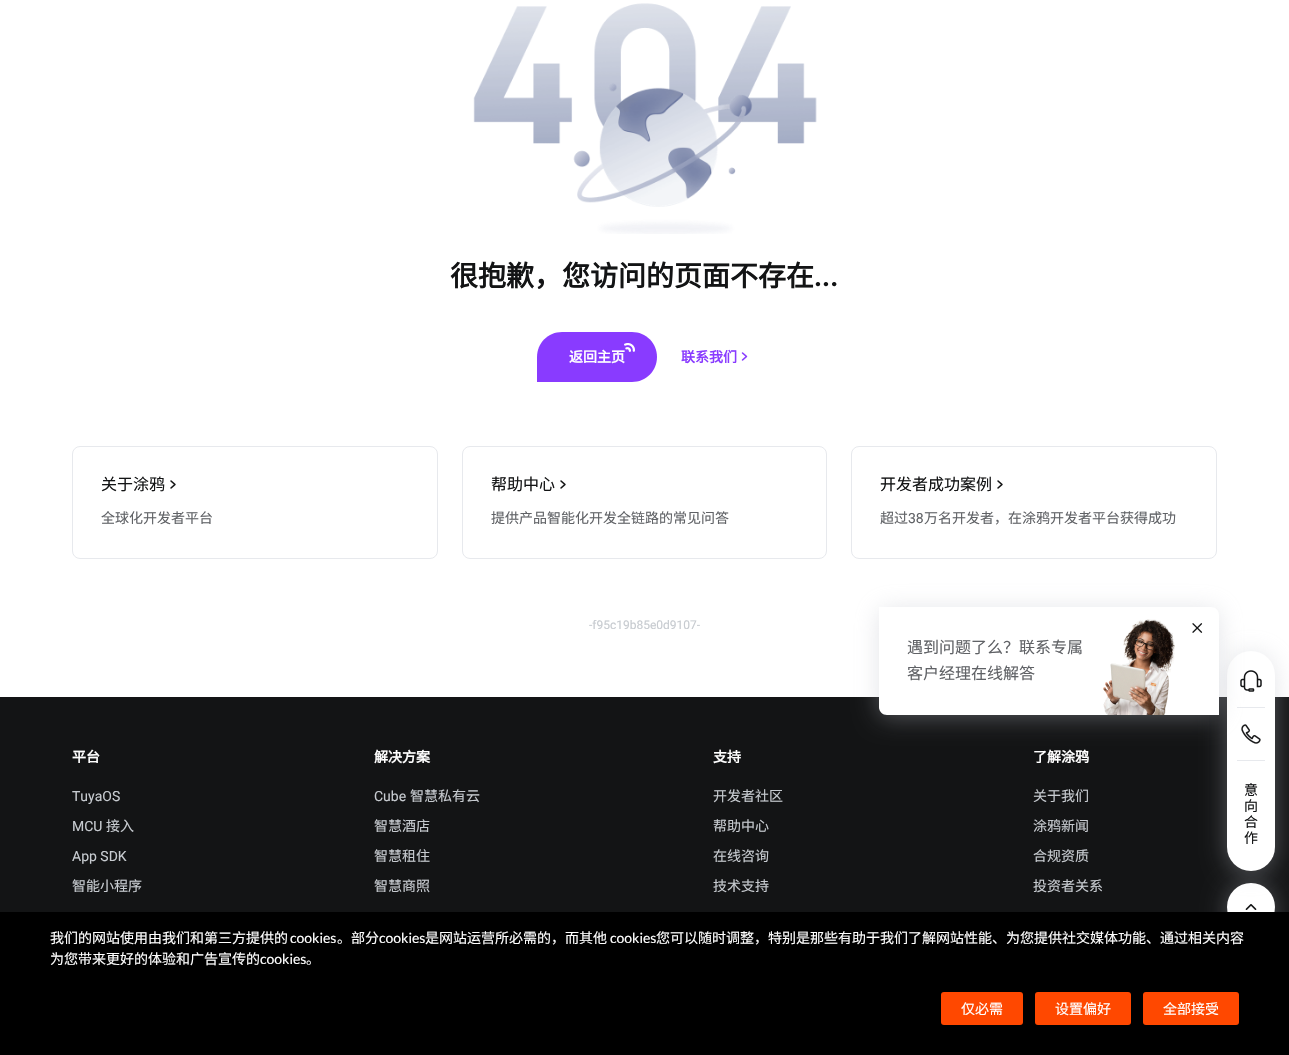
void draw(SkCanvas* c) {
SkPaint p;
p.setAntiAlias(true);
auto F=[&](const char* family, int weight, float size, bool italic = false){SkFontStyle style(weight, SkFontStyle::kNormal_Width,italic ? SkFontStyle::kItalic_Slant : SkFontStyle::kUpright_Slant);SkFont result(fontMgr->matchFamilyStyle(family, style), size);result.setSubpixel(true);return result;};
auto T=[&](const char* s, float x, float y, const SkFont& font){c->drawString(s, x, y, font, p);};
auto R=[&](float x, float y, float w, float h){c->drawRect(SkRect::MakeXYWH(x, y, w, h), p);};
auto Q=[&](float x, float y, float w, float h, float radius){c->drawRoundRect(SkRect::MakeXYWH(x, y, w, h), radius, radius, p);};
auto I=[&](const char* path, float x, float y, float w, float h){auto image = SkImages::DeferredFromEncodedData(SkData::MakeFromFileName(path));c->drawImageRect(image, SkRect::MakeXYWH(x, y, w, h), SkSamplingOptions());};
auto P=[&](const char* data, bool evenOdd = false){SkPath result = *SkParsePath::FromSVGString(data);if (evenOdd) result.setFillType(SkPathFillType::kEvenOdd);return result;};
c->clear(0xffffffff);
I("1.png",473,3,344,231);
auto f1 = F("Noto Sans CJK SC",700,28);
p.setColor(0xff131415);
T("很抱歉，您访问的页面不存在",450,286,f1);
auto f2 = F("Roboto",700,28);
T("...",814,286,f2);
p.setColor(0xff893bff);
c->drawPath(P("M562 332h70c14 0 25 11 25 25c0 14-11 25-25 25h-95v-25c0-14 11-25 25-25z"),p);
I("2.png",624,343,11,9);
auto f3 = F("Noto Sans CJK SC",700,14);
p.setColor(0xffffffff);
T("返回主页",569,362,f3);
p.setColor(0xff893bff);
T("联系我们",681,362,f3);
I("3.png",741,352,7,9);
p.setStroke(true);
p.setStrokeWidth(1);
p.setColor(0xffe7e9ed);
c->drawRoundRect(SkRect::MakeXYWH(72.5,446.5,365,112),7.5,7.5,p);
auto f4 = F("Noto Sans CJK SC",400,16);
p.setStroke(false);
p.setColor(0xff131415);
T("关于涂鸦",101,490,f4);
I("4.png",170,480,6,9);
auto f5 = F("Noto Sans CJK SC",400,14);
p.setColor(0xff606266);
T("全球化开发者平台",101,523,f5);
p.setStroke(true);
p.setColor(0xffe7e9ed);
c->drawRoundRect(SkRect::MakeXYWH(462.5,446.5,364,112),7.5,7.5,p);
p.setStroke(false);
p.setColor(0xff131415);
T("帮助中心",491,490,f4);
I("4.png",560,480,6,9);
p.setColor(0xff606266);
T("提供产品智能化开发全链路的常见问答",491,523,f5);
p.setStroke(true);
p.setColor(0xffe7e9ed);
c->drawRoundRect(SkRect::MakeXYWH(851.5,446.5,365,112),7.5,7.5,p);
p.setStroke(false);
p.setColor(0xff131415);
T("开发者成功案例",880,490,f4);
I("4.png",997,480,6,9);
p.setColor(0xff606266);
T("超过",880,523,f5);
auto f6 = F("Roboto",400,14);
T("38",908,523,f6);
T("万名开发者，在涂鸦开发者平台获得成功",924,523,f5);
auto f7 = F("Roboto",400,12);
p.setColor(0xffc7cbd0);
T("-f95c19b85e0d9107-",589,629,f7);
p.setColor(0xff131415);
R(0,697,1289,215);
p.setColor(0x66b8bbc5);
p.setMaskFilter(SkMaskFilter::MakeBlur(kNormal_SkBlurStyle, 12.5));
c->drawRoundRect(SkRect::MakeXYWH(1227,885,48,48),24,24,p);
p.setMaskFilter(nullptr);
p.setColor(0xffffffff);
c->drawCircle(1251,907,24,p);
I("9.png",1245,904,12,6);
p.setColor(0x66b8bbc5);
p.setMaskFilter(SkMaskFilter::MakeBlur(kNormal_SkBlurStyle, 12.5));
c->drawRoundRect(SkRect::MakeXYWH(1227,653,48,220),24,24,p);
p.setMaskFilter(nullptr);
p.setColor(0xffffffff);
Q(1227,651,48,220,24);
p.setColor(0xffe7e9ed);
R(1237,707,28,1);
I("7.png",1240,670,22,22);
I("8.png",1241,724,20,20);
p.setColor(0x66b8bbc5);
p.setMaskFilter(SkMaskFilter::MakeBlur(kNormal_SkBlurStyle, 12.5));
c->drawRoundRect(SkRect::MakeXYWH(879,609,340,108),8,8,p);
p.setMaskFilter(nullptr);
p.setColor(0xffffffff);
c->drawPath(P("M879 607h332c4.5 0 8 3.5 8 8v100h-332c-4.5 0-8-3.5-8-8z"),p);
I("5.png",1103,619,72,96);
I("6.png",1192,623,11,10);
p.setColor(0xff606266);
T("遇到问题了么？联系专属",907,653,f4);
T("客户经理在线解答",907,679,f4);
p.setColor(0xffe7e9ed);
R(1237,760,28,1);
p.setColor(0xff131415);
T("意",1244,795,f5);
T("向",1244,811,f5);
T("合",1244,827,f5);
T("作",1244,843,f5);
p.setColor(0xffffffff);
T("平台",72,762,f3);
p.setColor(0xffc7cbd0);
T("TuyaOS",72,801,f6);
T("MCU",72,831,f6);
T("接入",106,831,f5);
T("App SDK",72,861,f6);
T("智能小程序",72,891,f5);
p.setColor(0xffffffff);
T("解决方案",374,762,f3);
p.setColor(0xffc7cbd0);
T("Cube",374,801,f6);
T("智慧私有云",410,801,f5);
T("智慧酒店",374,831,f5);
T("智慧租住",374,861,f5);
T("智慧商照",374,891,f5);
p.setColor(0xffffffff);
T("支持",713,762,f3);
p.setColor(0xffc7cbd0);
T("开发者社区",713,801,f5);
T("帮助中心",713,831,f5);
T("在线咨询",713,861,f5);
T("技术支持",713,891,f5);
p.setColor(0xffffffff);
T("了解涂鸦",1033,762,f3);
p.setColor(0xffc7cbd0);
T("关于我们",1033,801,f5);
T("涂鸦新闻",1033,831,f5);
T("合规资质",1033,861,f5);
T("投资者关系",1033,891,f5);
p.setColor(0xff000000);
R(0,912,1289,143);
p.setColor(0xffffffff);
T("我们的网站使用由我们和第三方提供的",50,943,f5);
auto f8 = F("Lato",400,14);
T("cookies",290,943,f8);
T("。部分",337,943,f5);
T("cookies",379,943,f8);
T("是网站运营所必需的，而其他",425,943,f5);
T("cookies",610,943,f8);
T("您可以随时调整，特别是那些有助于我们了解网站性能、为您提供社交媒体功能、通过相关内容",656,943,f5);
T("为您带来更好的体验和广告宣传的",50,964,f5);
T("cookies",260,964,f8);
T("。",306,964,f5);
p.setColor(0xffff4800);
Q(941,992,82,33,3);
p.setColor(0xffffffff);
T("仅必需",961,1014,f5);
p.setColor(0xffff4800);
Q(1035,992,96,33,3);
p.setColor(0xffffffff);
T("设置偏好",1055,1014,f5);
p.setColor(0xffff4800);
Q(1143,992,96,33,3);
p.setColor(0xffffffff);
T("全部接受",1163,1014,f5);
}
